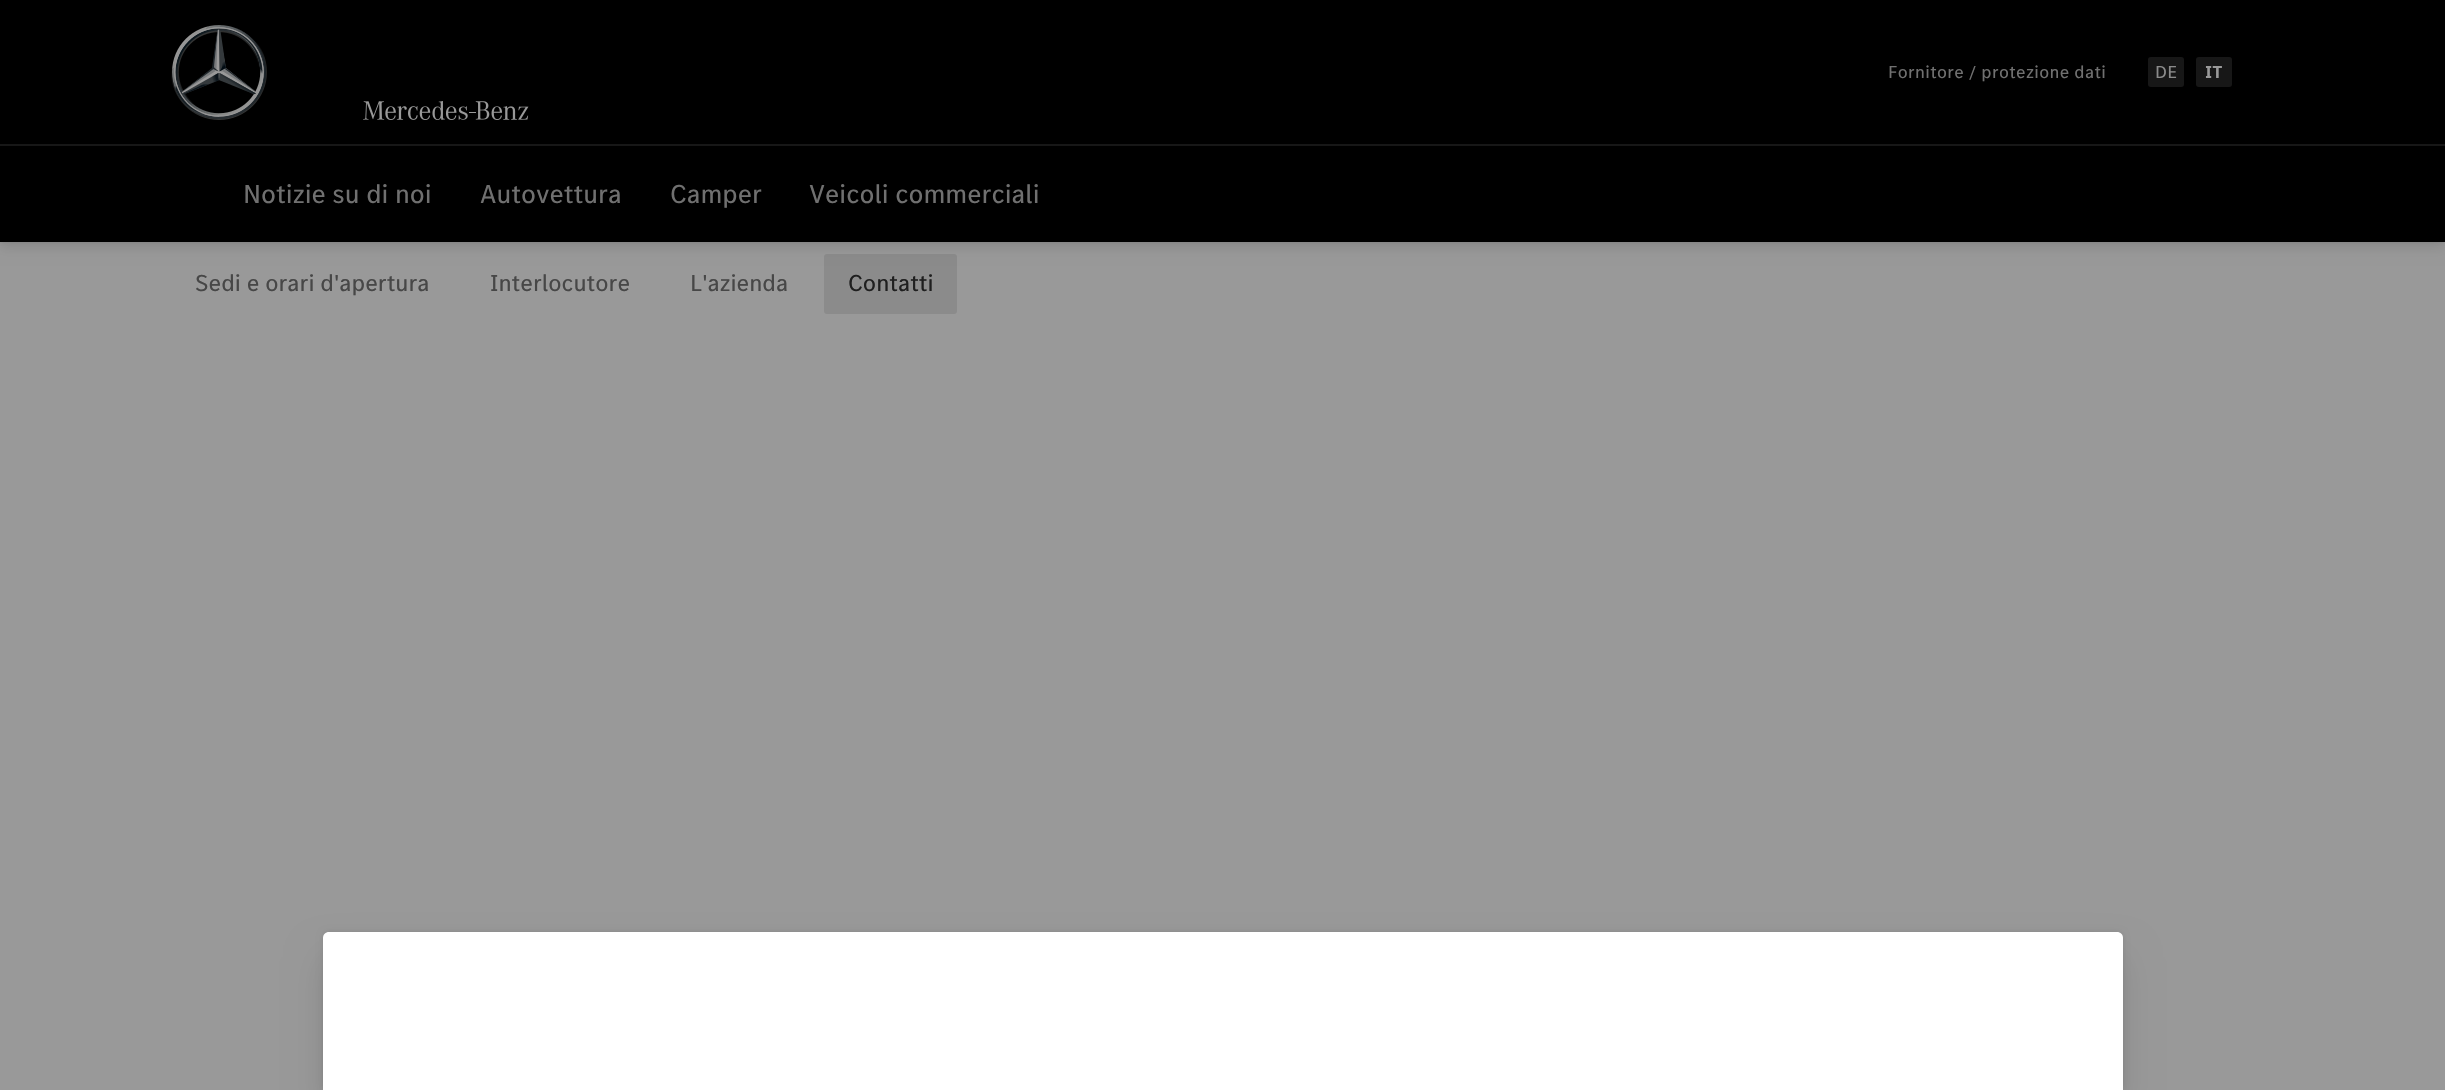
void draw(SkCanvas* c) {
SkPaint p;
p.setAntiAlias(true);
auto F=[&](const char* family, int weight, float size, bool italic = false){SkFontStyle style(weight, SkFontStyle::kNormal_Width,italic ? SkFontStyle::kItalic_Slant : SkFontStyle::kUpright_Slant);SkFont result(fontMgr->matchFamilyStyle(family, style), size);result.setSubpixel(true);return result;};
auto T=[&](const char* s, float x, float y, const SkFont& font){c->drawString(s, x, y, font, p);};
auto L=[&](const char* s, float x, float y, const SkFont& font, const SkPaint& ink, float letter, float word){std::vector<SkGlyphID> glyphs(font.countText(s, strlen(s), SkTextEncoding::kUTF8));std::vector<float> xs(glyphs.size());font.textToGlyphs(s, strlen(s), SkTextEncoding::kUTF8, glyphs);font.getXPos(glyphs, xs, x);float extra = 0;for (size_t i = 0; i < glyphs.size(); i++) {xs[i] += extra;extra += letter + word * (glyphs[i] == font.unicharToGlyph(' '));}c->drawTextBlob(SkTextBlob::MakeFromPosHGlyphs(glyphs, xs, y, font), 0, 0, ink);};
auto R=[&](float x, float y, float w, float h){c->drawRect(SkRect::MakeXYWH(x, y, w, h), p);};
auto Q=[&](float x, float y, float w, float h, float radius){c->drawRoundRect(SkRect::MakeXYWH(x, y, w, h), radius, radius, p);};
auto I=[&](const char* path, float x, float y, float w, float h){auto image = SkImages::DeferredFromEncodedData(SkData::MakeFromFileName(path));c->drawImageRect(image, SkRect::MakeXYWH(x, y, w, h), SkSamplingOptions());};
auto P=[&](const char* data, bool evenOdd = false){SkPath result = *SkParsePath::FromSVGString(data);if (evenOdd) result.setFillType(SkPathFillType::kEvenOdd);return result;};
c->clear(0xff999999);
p.setColor(0xff8b8b8b);
Q(824,254,133,60,3);
p.setColor(0x1a000000);
p.setMaskFilter(SkMaskFilter::MakeBlur(kNormal_SkBlurStyle, 6));
c->drawRect(SkRect::MakeXYWH(0,164,2445,84),p);
p.setMaskFilter(nullptr);
p.setMaskFilter(SkMaskFilter::MakeBlur(kNormal_SkBlurStyle, 1.5));
c->drawRect(SkRect::MakeXYWH(0,158,2445,84),p);
p.setMaskFilter(nullptr);
p.setColor(0xff000000);
R(0,0,2445,242);
I("1.png",171,25,96,95);
I("2.png",363,101,166,19);
auto f1 = F("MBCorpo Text",400,18);
p.setColor(0xff707070);
L("Fornitore / protezione dati",1888,78,f1,p,.35,0);
p.setColor(0xff171717);
Q(2148,57,36,30,3);
p.setColor(0xff8b8b8b);
L("DE",2155,78,f1,p,.35,0);
p.setColor(0xff171717);
Q(2196,57,36,30,3);
auto f2 = F("MBCorpo Text",700,18);
p.setColor(0xff999999);
T("IT",2205,78,f2);
p.setColor(0xff171717);
R(0,144,2445,2);
auto f3 = F("MBCorpo Text",400,27);
p.setColor(0xff707070);
T("Notizie su di noi",243,203,f3);
T("Autovettura",480,203,f3);
T("Camper",670,203,f3);
T("Veicoli commerciali",809,203,f3);
auto f4 = F("MBCorpo Text",400,24);
p.setColor(0xff474747);
T("Sedi e orari d'apertura",195,291,f4);
T("Interlocutore",490,291,f4);
T("L'azienda",690,291,f4);
p.setColor(0xff1f1f1f);
T("Contatti",848,291,f4);
p.setColor(0x1a000000);
p.setMaskFilter(SkMaskFilter::MakeBlur(kNormal_SkBlurStyle, 18));
c->drawRoundRect(SkRect::MakeXYWH(323,956,1800,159),6,6,p);
p.setMaskFilter(nullptr);
p.setMaskFilter(SkMaskFilter::MakeBlur(kNormal_SkBlurStyle, 3));
c->drawRoundRect(SkRect::MakeXYWH(323,932,1800,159),6,6,p);
p.setMaskFilter(nullptr);
p.setColor(0xffffffff);
c->drawPath(P("M329 932h1788c3.5 0 6 2.5 6 6v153h-1800v-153c0-3.5 2.5-6 6-6z"),p);
}
